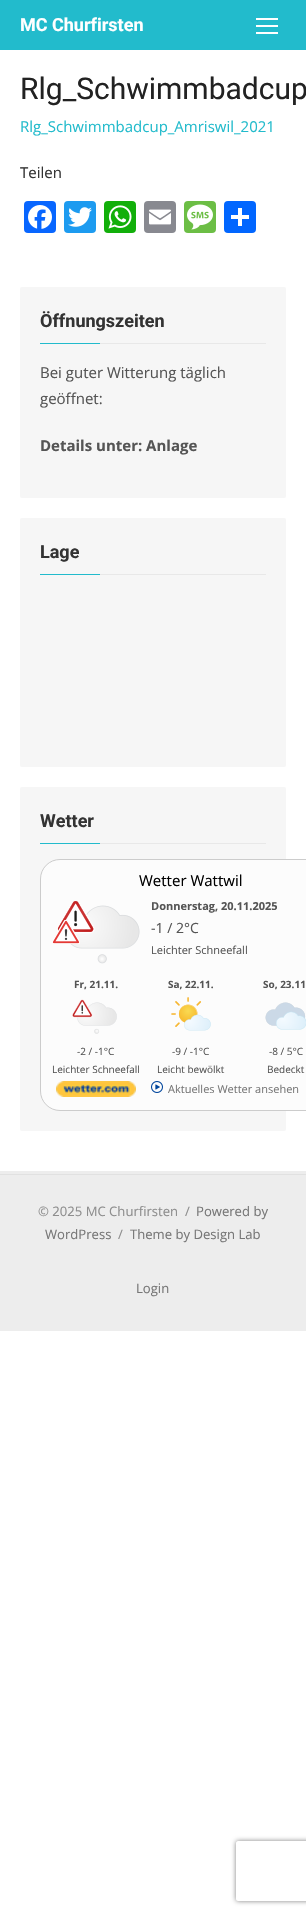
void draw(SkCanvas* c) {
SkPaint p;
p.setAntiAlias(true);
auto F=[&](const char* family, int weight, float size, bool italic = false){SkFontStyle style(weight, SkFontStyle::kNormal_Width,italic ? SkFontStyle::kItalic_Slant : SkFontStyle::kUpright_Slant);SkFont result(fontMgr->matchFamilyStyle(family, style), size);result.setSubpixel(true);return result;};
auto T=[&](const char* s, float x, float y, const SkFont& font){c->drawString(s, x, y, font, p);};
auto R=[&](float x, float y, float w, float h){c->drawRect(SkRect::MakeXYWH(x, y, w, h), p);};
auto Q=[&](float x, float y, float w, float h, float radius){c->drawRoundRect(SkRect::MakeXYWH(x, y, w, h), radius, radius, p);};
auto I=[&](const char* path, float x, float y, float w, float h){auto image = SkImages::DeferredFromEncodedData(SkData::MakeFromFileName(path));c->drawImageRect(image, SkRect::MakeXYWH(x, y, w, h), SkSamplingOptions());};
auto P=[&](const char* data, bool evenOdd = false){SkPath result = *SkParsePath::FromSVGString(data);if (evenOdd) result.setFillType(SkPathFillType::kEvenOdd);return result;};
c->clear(0xffffffff);
p.setColor(0xff22bbcc);
R(0,0,306,50);
auto f1 = F("Roboto",700,18);
p.setColor(0xffffffff);
T("MC Churfirsten",20,31,f1);
R(256,25,22,2);
R(256,18,22,2);
R(256,32,22,2);
auto f2 = F("Roboto",400,30);
p.setColor(0xff222222);
T("Rlg_Schwimmbadcup",20,99,f2);
auto f3 = F("Open Sans",400,15);
p.setColor(0xff22bbcc);
T("Rlg_Schwimmbadcup_Amriswil_2021",20,132,f3);
p.setColor(0xff333333);
T("Teilen",20,178,f3);
p.setColor(0xff0866ff);
Q(24,201,32,32,4);
I("1.png",28,205,24,24);
p.setColor(0xff1d9bf0);
Q(64,201,32,32,4);
I("2.png",68,207,24,20);
p.setColor(0xff12af0a);
Q(104,201,32,32,4);
I("3.png",108,205,24,24);
p.setColor(0xff888990);
Q(144,201,32,32,4);
I("4.png",149,209,22,16);
p.setColor(0xff6cbe45);
Q(184,201,32,32,4);
I("5.png",187,204,26,26);
p.setColor(0xff0166ff);
Q(224,201,32,32,4);
p.setColor(0xffffffff);
R(238,208,4,18);
R(231,215,18,4);
p.setColor(0xfff6f6f6);
Q(20,287,266,211,2);
p.setColor(0xffe8e8e8);
R(100,343,166,1);
p.setColor(0xff333333);
T("Öffnungszeiten",40,327,f1);
p.setColor(0xff22bbcc);
R(40,343,60,1);
p.setColor(0xff555555);
T("Bei guter Witterung täglich",40,378,f3);
T("geöffnet:",40,404,f3);
auto f4 = F("Open Sans",700,15);
T("Details unter: Anlage",40,451,f4);
p.setColor(0xfff6f6f6);
Q(20,518,266,249,2);
p.setColor(0xffe8e8e8);
R(100,574,166,1);
p.setColor(0xff333333);
T("Lage",40,558,f1);
p.setColor(0xff22bbcc);
R(40,574,60,1);
p.setColor(0xfff6f6f6);
Q(20,787,266,344,2);
p.setColor(0xffe8e8e8);
R(100,843,166,1);
p.setColor(0xff333333);
T("Wetter",40,827,f1);
p.setColor(0xff22bbcc);
R(40,843,60,1);
p.setColor(0xfffcfcfc);
c->drawRoundRect(SkRect::MakeXYWH(40.5,859.5,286,251),19.5,19.5,p);
p.setStroke(true);
p.setStrokeWidth(1);
p.setColor(0xffcccccc);
c->drawRoundRect(SkRect::MakeXYWH(40.5,859.5,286,251),19.5,19.5,p);
p.setStroke(false);
p.setColor(0xff000000);
T("Wetter Wattwil",139,886,f3);
I("6.png",57,901,83,63);
I("7.png",52,919,28,25);
auto f5 = F("Open Sans",700,11);
p.setColor(0xff555555);
T("Donnerstag, 20.11.2025",151,910,f5);
auto f6 = F("Open Sans",400,14);
T("-1 / 2°C",151,933,f6);
auto f7 = F("Open Sans",400,11);
T("Leichter Schneefall",151,954,f7);
auto f8 = F("Open Sans",700,10);
T("Fr, 21.11.",74,988,f8);
I("8.png",72,999,45,35);
auto f9 = F("Open Sans",400,10);
T("-2 / -1°C",77,1055,f9);
T("Leichter Schneefall",52,1073,f9);
T("Sa, 22.11.",168,988,f8);
I("9.png",171,997,40,34);
T("-9 / -1°C",172,1055,f9);
T("Leicht bewölkt",157,1073,f9);
T("So, 23.11",263,988,f8);
I("10.png",265,1002,41,28);
T("-8 / 5°C",269,1055,f9);
T("Bedeckt",267,1073,f9);
I("11.png",56,1081,80,16);
I("12.png",151,1081,12,12);
p.setColor(0xff777777);
T("Aktuelles Wetter ansehen",168,1093,f7);
p.setColor(0xffededed);
R(0,1171,306,160);
p.setColor(0xffe1e1e1);
R(0,1174,306,1);
auto f10 = F("Open Sans",400,13.1);
p.setColor(0xff8e8e8e);
T("© 2025 MC Churfirsten",38,1216,f10);
T("/",185,1216,f10);
p.setColor(0xff777777);
T("Powered by",196,1216,f10);
T("WordPress",45,1239,f10);
p.setColor(0xff8e8e8e);
T("/",118,1239,f10);
p.setColor(0xff777777);
T("Theme by Design Lab",130,1239,f10);
T("Login",136,1293,f10);
c->save();
c->clipPath(P("M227 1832h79v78h-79zm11 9h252c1 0 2 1 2 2v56c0 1-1 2-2 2h-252c-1 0-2-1-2-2v-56c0-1 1-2 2-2z",true),true);
p.setColor(0xff808080);
p.setMaskFilter(SkMaskFilter::MakeBlur(kNormal_SkBlurStyle, 2.5));
c->drawRoundRect(SkRect::MakeXYWH(236,1841,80,60),2,2,p);
p.setMaskFilter(nullptr);
c->restore();
}
